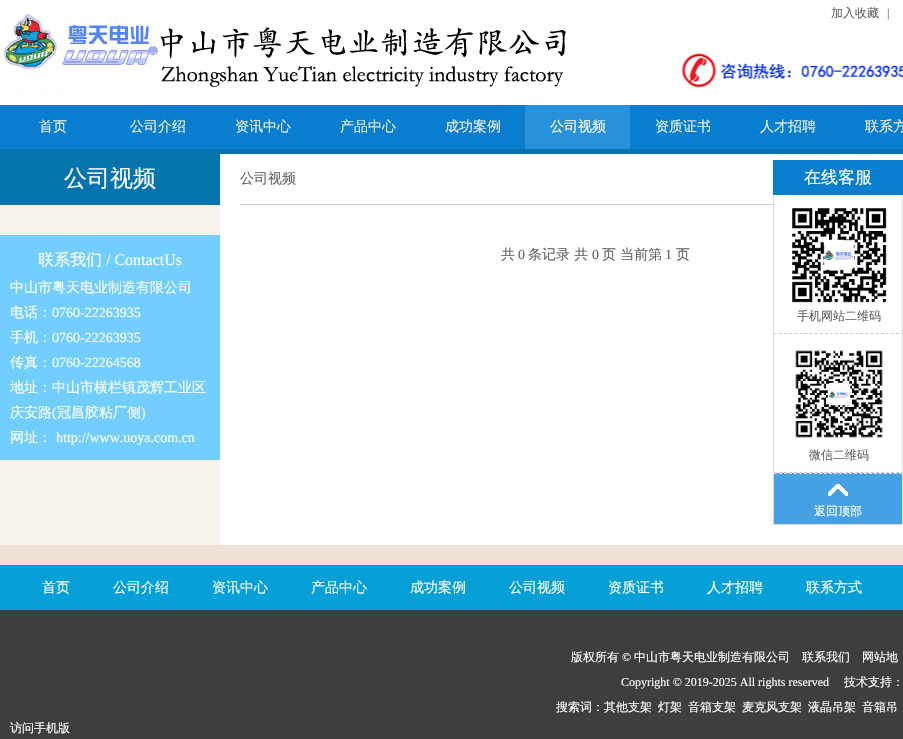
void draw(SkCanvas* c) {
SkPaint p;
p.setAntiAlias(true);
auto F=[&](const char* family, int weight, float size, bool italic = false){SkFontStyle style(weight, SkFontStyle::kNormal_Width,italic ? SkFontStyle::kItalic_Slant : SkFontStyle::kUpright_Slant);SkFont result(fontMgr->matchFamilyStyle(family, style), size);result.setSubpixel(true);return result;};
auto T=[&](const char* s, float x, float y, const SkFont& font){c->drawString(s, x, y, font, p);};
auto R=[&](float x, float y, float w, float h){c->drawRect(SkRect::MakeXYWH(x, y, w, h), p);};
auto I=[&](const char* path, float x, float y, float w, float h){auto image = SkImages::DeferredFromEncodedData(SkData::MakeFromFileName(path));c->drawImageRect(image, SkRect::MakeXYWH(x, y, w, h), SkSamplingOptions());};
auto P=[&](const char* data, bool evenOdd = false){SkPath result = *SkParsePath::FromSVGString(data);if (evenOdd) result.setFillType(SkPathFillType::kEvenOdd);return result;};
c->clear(0xffede2d5);
p.setColor(0xffffffff);
R(0,0,903,105);
I("1.png",681,53,222,35);
I("2.png",0,13,566,79);
auto f1 = F("WenQuanYi Zen Hei",500,12);
p.setColor(0xff616161);
T("加入收藏",831,17,f1);
auto f2 = F("Liberation Serif",400,12);
T("|",887,17,f2);
p.setColor(0xff097dce);
R(0,105,903,44);
auto f3 = F("WenQuanYi Zen Hei",500,14);
p.setColor(0xffedefed);
T("首页",39,131,f3);
T("公司介绍",130,131,f3);
T("资讯中心",235,131,f3);
T("产品中心",340,131,f3);
T("成功案例",445,131,f3);
p.setColor(0xff2791db);
R(525,105,105,44);
p.setColor(0xffffffff);
T("公司视频",550,131,f3);
p.setColor(0xffedefed);
T("资质证书",655,131,f3);
T("人才招聘",760,131,f3);
T("联系方",865,131,f3);
p.setColor(0xffffffff);
R(220,154,683,391);
p.setColor(0xff0573ad);
R(0,149,903,5);
p.setColor(0xfff6f1eb);
R(0,205,220,340);
p.setColor(0xff0573ad);
R(0,154,220,51);
auto f4 = F("WenQuanYi Zen Hei",500,23);
p.setColor(0xffffffff);
T("公司视频",64,186,f4);
p.setColor(0xff72ceff);
R(0,235,220,225);
auto f5 = F("WenQuanYi Zen Hei",500,16);
p.setColor(0xffffffff);
T("联系我们",38,265,f5);
auto f6 = F("Liberation Serif",400,16);
T("/ ContactUs",106,265,f6);
T("中山市粤天电业制造有限公司",10,292,f3);
T("电话：",10,317,f3);
auto f7 = F("Liberation Serif",400,14);
T("0760-22263935",52,317,f7);
T("手机：",10,342,f3);
T("0760-22263935",52,342,f7);
T("传真：",10,367,f3);
T("0760-22264568",52,367,f7);
T("地址：中山市横栏镇茂辉工业区",10,392,f3);
T("庆安路",10,417,f3);
T("(",52,417,f7);
T("冠昌胶粘厂侧",57,417,f3);
T(")",141,417,f7);
T("网址：",10,442,f3);
T("http://www.uoya.com.cn",56,442,f7);
p.setColor(0xffcecece);
R(240,204,533,1);
p.setColor(0xff616161);
T("公司视频",240,183,f3);
T("共",501,259,f3);
T("0",518,259,f7);
T("条记录 共",528,259,f3);
T("0",592,259,f7);
T("页 当前第",602,259,f3);
T("1",665,259,f7);
T("页",676,259,f3);
p.setColor(0xff097dce);
R(773,160,130,35);
auto f8 = F("WenQuanYi Zen Hei",500,17);
p.setColor(0xffffffff);
T("在线客服",804,183,f8);
p.setColor(0xffdedede);
R(902,195,1,330);
R(773,524,130,1);
R(773,195,1,330);
p.setStroke(true);
p.setStrokeWidth(1);
p.setColor(0xffcecece);
p.setPathEffect(SkDashPathEffect::Make({{3,2.08f}}, 0));
c->drawPath(P("M774 333.5h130"),p);
p.setPathEffect(nullptr);
I("3.png",792,208,95,95);
p.setStroke(false);
p.setColor(0xff616161);
T("手机网站二维码",797,320,f1);
p.setStroke(true);
p.setColor(0xffcecece);
p.setPathEffect(SkDashPathEffect::Make({{3,2.08f}}, 0));
c->drawPath(P("M774 472.5h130"),p);
p.setPathEffect(nullptr);
I("4.png",795,350,88,88);
p.setStroke(false);
p.setColor(0xff616161);
T("微信二维码",809,459,f1);
p.setColor(0xff45a1e3);
R(774,473,128,51);
I("5.png",828,484,20,12);
p.setStroke(true);
p.setColor(0xffdedede);
p.setPathEffect(SkDashPathEffect::Make({{3,2}}, 0));
c->drawPath(P("M774 473.5h128"),p);
p.setPathEffect(nullptr);
p.setStroke(false);
p.setColor(0xffffffff);
T("返回顶部",814,515,f1);
p.setColor(0xff069fd8);
R(0,565,903,45);
p.setColor(0xffffffff);
T("首页",42,592,f3);
T("公司介绍",113,592,f3);
T("资讯中心",212,592,f3);
T("产品中心",311,592,f3);
T("成功案例",410,592,f3);
T("公司视频",509,592,f3);
T("资质证书",608,592,f3);
T("人才招聘",707,592,f3);
T("联系方式",806,592,f3);
p.setColor(0xff3e3e3e);
R(0,610,903,129);
p.setColor(0xffffffff);
T("版权所有",571,661,f1);
T("©",622,661,f2);
T("中山市粤天电业制造有限公司",634,661,f1);
T("联系我们",802,661,f1);
T("网站地",862,661,f1);
T("Copyright © 2019-2025 All rights reserved",621,686,f2);
T("技术支持：",844,686,f1);
T("搜索词：其他支架",556,711,f1);
T("灯架",658,711,f1);
T("音箱支架",688,711,f1);
T("麦克风支架",742,711,f1);
T("液晶吊架",808,711,f1);
T("音箱吊",862,711,f1);
T("访问手机版",10,732,f1);
}
